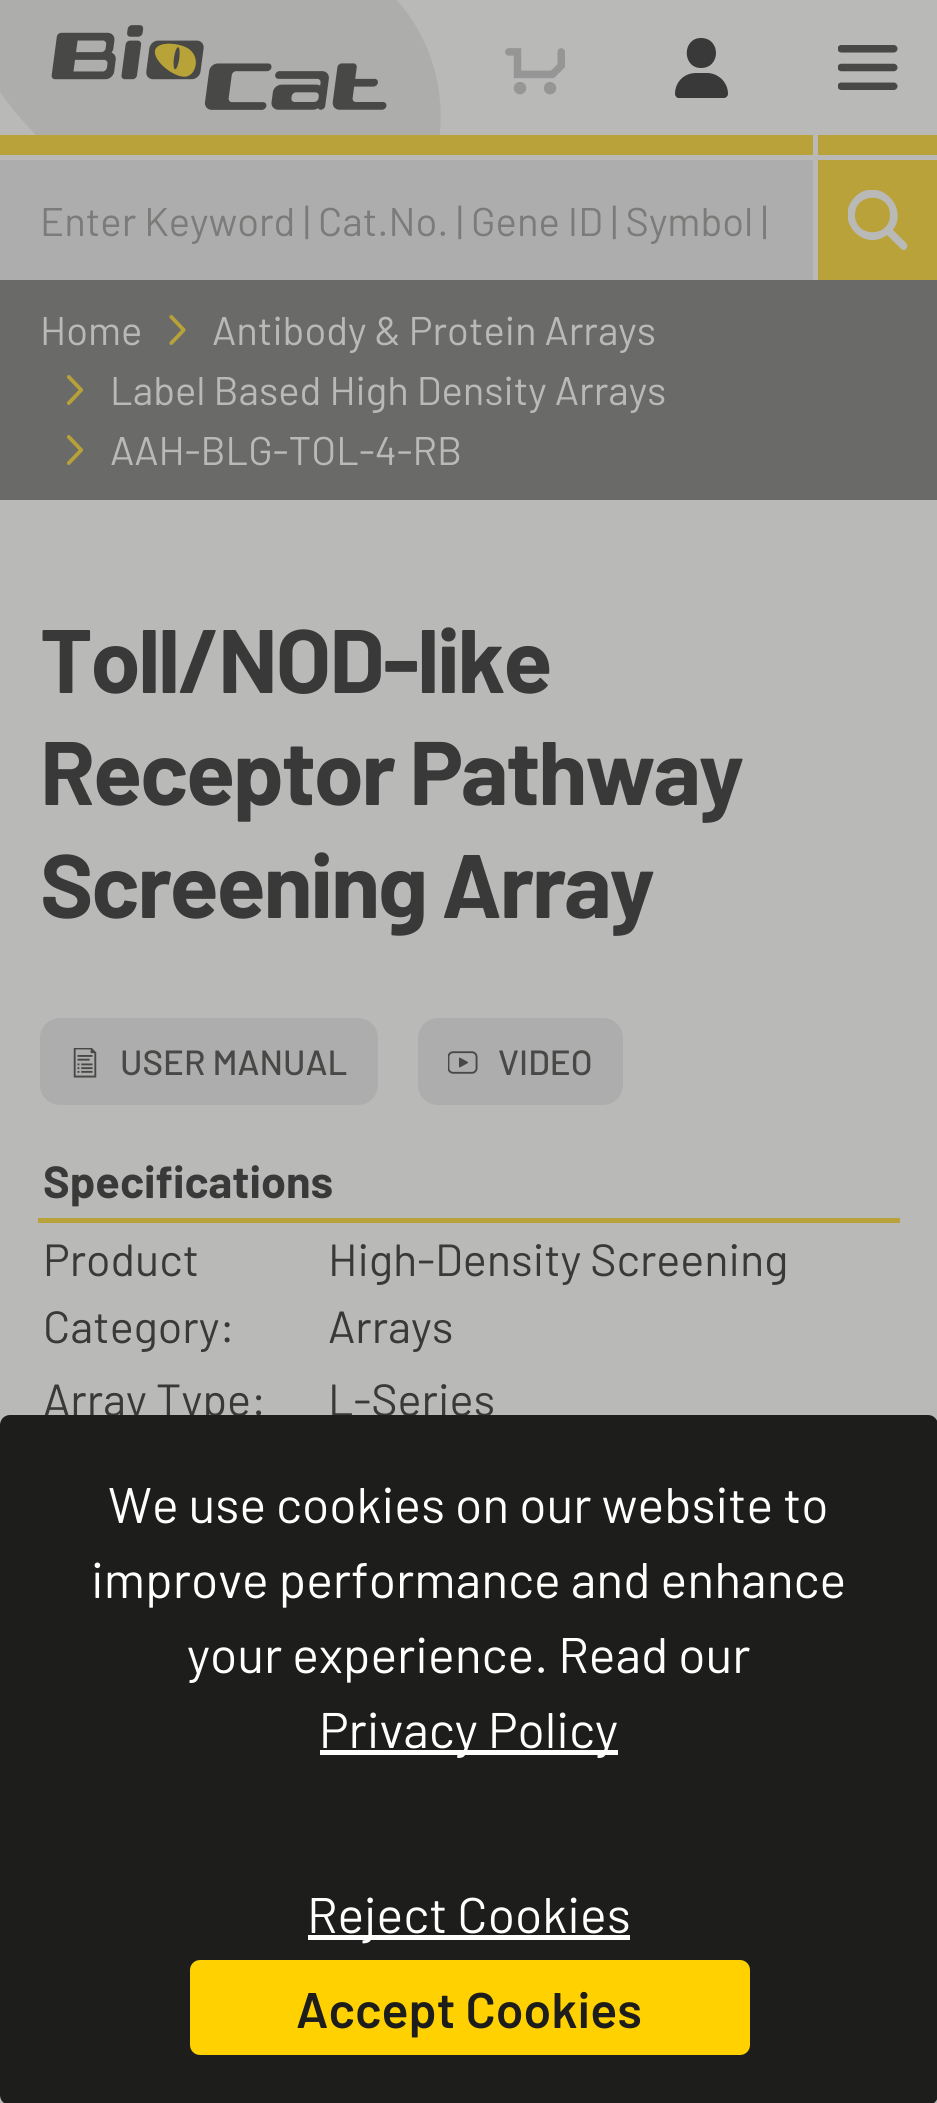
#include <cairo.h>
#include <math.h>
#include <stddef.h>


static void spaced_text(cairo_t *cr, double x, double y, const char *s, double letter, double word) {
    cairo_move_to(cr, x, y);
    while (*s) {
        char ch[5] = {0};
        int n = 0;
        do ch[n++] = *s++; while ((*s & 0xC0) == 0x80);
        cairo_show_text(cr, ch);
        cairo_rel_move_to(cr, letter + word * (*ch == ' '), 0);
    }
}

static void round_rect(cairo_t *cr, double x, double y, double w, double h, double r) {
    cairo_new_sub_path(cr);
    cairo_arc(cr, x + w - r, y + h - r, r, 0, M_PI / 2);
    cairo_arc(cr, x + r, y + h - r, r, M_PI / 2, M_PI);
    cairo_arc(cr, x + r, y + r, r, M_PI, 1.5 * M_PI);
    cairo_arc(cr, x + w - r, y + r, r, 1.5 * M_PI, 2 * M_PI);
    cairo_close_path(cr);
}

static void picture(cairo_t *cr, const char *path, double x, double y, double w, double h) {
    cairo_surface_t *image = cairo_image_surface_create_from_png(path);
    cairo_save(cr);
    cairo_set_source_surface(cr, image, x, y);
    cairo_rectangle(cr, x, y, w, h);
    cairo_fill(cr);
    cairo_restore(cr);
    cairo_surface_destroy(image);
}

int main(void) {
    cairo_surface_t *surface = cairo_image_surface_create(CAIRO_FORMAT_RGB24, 937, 2103);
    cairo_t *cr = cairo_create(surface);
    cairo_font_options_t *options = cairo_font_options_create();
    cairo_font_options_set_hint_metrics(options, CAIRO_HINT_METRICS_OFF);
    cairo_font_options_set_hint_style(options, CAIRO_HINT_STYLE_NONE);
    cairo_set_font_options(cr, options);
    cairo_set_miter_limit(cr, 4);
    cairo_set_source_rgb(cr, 0.725, 0.725, 0.722);
    cairo_paint(cr);
    picture(cr, "img1.png", 0, 0, 441, 135);
    picture(cr, "img2.png", 505, 48, 60, 47);
    cairo_set_source_rgb(cr, 0.224, 0.224, 0.224);
    cairo_new_path(cr);
    cairo_move_to(cr, 701, 68);
    cairo_curve_to(cr, 721, 68, 721, 38, 701, 38);
    cairo_curve_to(cr, 682, 38, 682, 68, 701, 68);
    cairo_close_path(cr);
    cairo_move_to(cr, 696, 73);
    cairo_curve_to(cr, 684, 73, 675, 82, 675, 94);
    cairo_curve_to(cr, 675, 96, 677, 98, 678, 98);
    cairo_line_to(cr, 724, 98);
    cairo_curve_to(cr, 726, 98, 728, 96, 728, 94);
    cairo_curve_to(cr, 728, 82, 718, 73, 707, 73);
    cairo_close_path(cr);
    cairo_fill(cr);
    picture(cr, "img3.png", 838, 45, 60, 45);
    cairo_set_source_rgb(cr, 0.725, 0.635, 0.224);
    cairo_rectangle(cr, 0, 135, 813, 20);
    cairo_fill(cr);
    cairo_rectangle(cr, 818, 135, 119, 20);
    cairo_fill(cr);
    cairo_set_source_rgb(cr, 0.678, 0.678, 0.678);
    cairo_rectangle(cr, 0, 160, 813, 120);
    cairo_fill(cr);
    cairo_select_font_face(cr, "Barlow", CAIRO_FONT_SLANT_NORMAL, CAIRO_FONT_WEIGHT_NORMAL);
    cairo_set_font_size(cr, 40);
    cairo_set_source_rgb(cr, 0.482, 0.482, 0.478);
    cairo_move_to(cr, 40, 236);
    cairo_show_text(cr, "Enter Keyword | Cat.No. | Gene ID | Symbol |");
    cairo_set_source_rgb(cr, 0.725, 0.635, 0.224);
    cairo_rectangle(cr, 818, 160, 119, 120);
    cairo_fill(cr);
    cairo_save(cr);
    cairo_rectangle(cr, 848, 190, 60, 60);
    cairo_clip(cr);
    cairo_set_source_rgb(cr, 0.725, 0.725, 0.722);
    cairo_new_path(cr);
    cairo_move_to(cr, 855, 215);
    cairo_curve_to(cr, 855, 238, 890, 238, 890, 215);
    cairo_curve_to(cr, 890, 192, 855, 192, 855, 215);
    cairo_close_path(cr);
    cairo_move_to(cr, 893, 230);
    cairo_line_to(cr, 902, 239);
    cairo_curve_to(cr, 904, 241, 910, 245, 906, 249);
    cairo_curve_to(cr, 903, 253, 899, 246, 896, 244);
    cairo_line_to(cr, 887, 235);
    cairo_curve_to(cr, 863, 253, 833, 219, 855, 197);
    cairo_curve_to(cr, 877, 175, 910, 206, 893, 230);
    cairo_close_path(cr);
    cairo_fill(cr);
    cairo_restore(cr);
    cairo_set_source_rgb(cr, 0.416, 0.416, 0.412);
    cairo_rectangle(cr, 0, 280, 937, 220);
    cairo_fill(cr);
    cairo_set_source_rgb(cr, 0.725, 0.725, 0.722);
    cairo_move_to(cr, 40, 345);
    cairo_show_text(cr, "Home");
    picture(cr, "img4.png", 169, 315, 17, 30);
    cairo_move_to(cr, 212, 345);
    cairo_show_text(cr, "Antibody & Protein Arrays");
    picture(cr, "img5.png", 66, 375, 18, 30);
    cairo_move_to(cr, 110, 405);
    cairo_show_text(cr, "Label Based High Density Arrays");
    picture(cr, "img5.png", 66, 435, 18, 30);
    cairo_move_to(cr, 110, 465);
    cairo_show_text(cr, "AAH-BLG-TOL-4-RB");
    cairo_select_font_face(cr, "Barlow", CAIRO_FONT_SLANT_NORMAL, CAIRO_FONT_WEIGHT_BOLD);
    cairo_set_font_size(cr, 90);
    cairo_set_source_rgb(cr, 0.224, 0.224, 0.224);
    spaced_text(cr, 40, 693, "Toll/NOD-like", -2.25, 0);
    spaced_text(cr, 40, 805, "Receptor Pathway", -2.25, 0);
    spaced_text(cr, 40, 918, "Screening Array", -2.25, 0);
    cairo_set_source_rgb(cr, 0.678, 0.678, 0.678);
    round_rect(cr, 40, 1018, 338, 87, 20);
    cairo_fill(cr);
    picture(cr, "img6.png", 73, 1048, 24, 30);
    cairo_select_font_face(cr, "Barlow Medium", CAIRO_FONT_SLANT_NORMAL, CAIRO_FONT_WEIGHT_NORMAL);
    cairo_set_font_size(cr, 35);
    cairo_set_source_rgb(cr, 0.282, 0.282, 0.275);
    cairo_move_to(cr, 120, 1075);
    cairo_show_text(cr, "USER MANUAL");
    cairo_set_source_rgb(cr, 0.678, 0.678, 0.678);
    round_rect(cr, 418, 1018, 205, 87, 20);
    cairo_fill(cr);
    picture(cr, "img7.png", 448, 1051, 30, 23);
    cairo_set_source_rgb(cr, 0.282, 0.282, 0.275);
    cairo_move_to(cr, 498, 1075);
    cairo_show_text(cr, "VIDEO");
    cairo_set_source_rgb(cr, 0.725, 0.635, 0.224);
    cairo_rectangle(cr, 38, 1218, 862, 5);
    cairo_fill(cr);
    cairo_select_font_face(cr, "Barlow", CAIRO_FONT_SLANT_NORMAL, CAIRO_FONT_WEIGHT_BOLD);
    cairo_set_font_size(cr, 45);
    cairo_set_source_rgb(cr, 0.224, 0.224, 0.224);
    cairo_move_to(cr, 43, 1198);
    cairo_show_text(cr, "Specifications");
    cairo_select_font_face(cr, "Barlow", CAIRO_FONT_SLANT_NORMAL, CAIRO_FONT_WEIGHT_NORMAL);
    cairo_move_to(cr, 43, 1276);
    cairo_show_text(cr, "Product");
    cairo_move_to(cr, 43, 1343);
    cairo_show_text(cr, "Category:");
    cairo_move_to(cr, 328, 1276);
    cairo_show_text(cr, "High-Density Screening");
    cairo_move_to(cr, 328, 1343);
    cairo_show_text(cr, "Arrays");
    cairo_move_to(cr, 43, 1416);
    cairo_show_text(cr, "Array Type:");
    cairo_move_to(cr, 328, 1416);
    cairo_show_text(cr, "L-Series");
    cairo_set_source_rgb(cr, 0.114, 0.114, 0.106);
    round_rect(cr, 0, 1415, 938, 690, 10);
    cairo_fill(cr);
    cairo_set_font_size(cr, 50);
    cairo_set_source_rgb(cr, 1, 1, 1);
    cairo_move_to(cr, 108, 1523);
    cairo_show_text(cr, "We use cookies on our website to");
    cairo_move_to(cr, 91, 1598);
    cairo_show_text(cr, "improve performance and enhance");
    cairo_move_to(cr, 187, 1673);
    cairo_show_text(cr, "your experience. Read our");
    cairo_rectangle(cr, 320, 1750, 298, 5);
    cairo_fill(cr);
    cairo_move_to(cr, 319, 1748);
    cairo_show_text(cr, "Privacy Policy");
    cairo_rectangle(cr, 308, 1935, 322, 5);
    cairo_fill(cr);
    cairo_move_to(cr, 307, 1933);
    cairo_show_text(cr, "Reject Cookies");
    cairo_set_source_rgb(cr, 1, 0.82, 0);
    round_rect(cr, 190, 1960, 560, 95, 10);
    cairo_fill(cr);
    cairo_select_font_face(cr, "Barlow SemiBold", CAIRO_FONT_SLANT_NORMAL, CAIRO_FONT_WEIGHT_NORMAL);
    cairo_set_source_rgb(cr, 0.114, 0.114, 0.106);
    cairo_move_to(cr, 296, 2028);
    cairo_show_text(cr, "Accept Cookies");
    cairo_surface_write_to_png(surface, "page.png");
    cairo_font_options_destroy(options);
    cairo_destroy(cr);
    cairo_surface_destroy(surface);
    return 0;
}
